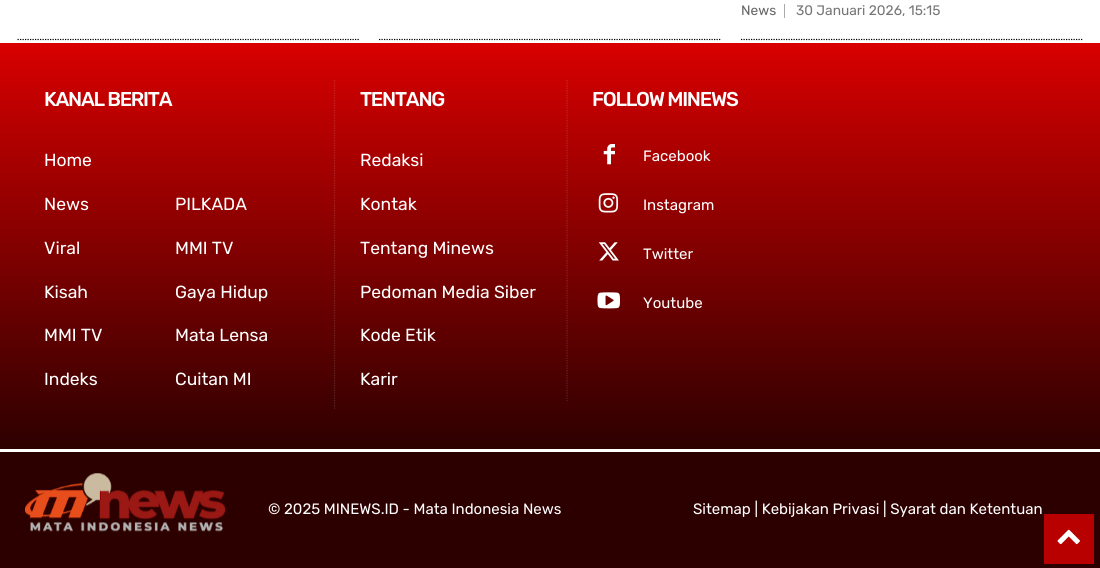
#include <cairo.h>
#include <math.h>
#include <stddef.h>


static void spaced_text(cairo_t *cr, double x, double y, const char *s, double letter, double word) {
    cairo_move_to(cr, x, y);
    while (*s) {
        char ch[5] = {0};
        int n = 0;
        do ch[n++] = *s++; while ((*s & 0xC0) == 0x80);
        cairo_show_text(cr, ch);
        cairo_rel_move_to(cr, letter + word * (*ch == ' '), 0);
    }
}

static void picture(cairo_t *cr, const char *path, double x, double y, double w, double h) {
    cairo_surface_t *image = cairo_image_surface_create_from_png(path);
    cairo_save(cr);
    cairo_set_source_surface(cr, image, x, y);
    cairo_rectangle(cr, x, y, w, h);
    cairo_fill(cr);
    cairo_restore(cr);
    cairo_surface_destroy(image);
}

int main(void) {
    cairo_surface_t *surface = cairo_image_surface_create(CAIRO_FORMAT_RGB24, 1100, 568);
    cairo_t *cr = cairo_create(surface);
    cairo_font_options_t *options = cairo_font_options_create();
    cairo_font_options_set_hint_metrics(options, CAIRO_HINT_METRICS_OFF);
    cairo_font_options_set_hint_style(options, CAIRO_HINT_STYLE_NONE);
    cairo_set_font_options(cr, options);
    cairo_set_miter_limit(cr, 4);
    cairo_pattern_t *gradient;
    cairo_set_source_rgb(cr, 1, 1, 1);
    cairo_paint(cr);
    cairo_set_source_rgb(cr, 0.667, 0.667, 0.667);
    cairo_rectangle(cr, 784, 4, 1, 14);
    cairo_fill(cr);
    cairo_select_font_face(cr, "Rubik", CAIRO_FONT_SLANT_NORMAL, CAIRO_FONT_WEIGHT_NORMAL);
    cairo_set_font_size(cr, 13.75);
    cairo_set_source_rgb(cr, 0.4, 0.4, 0.4);
    cairo_move_to(cr, 741, 15);
    cairo_show_text(cr, "News");
    cairo_set_source_rgb(cr, 0.463, 0.463, 0.463);
    cairo_move_to(cr, 796, 15);
    cairo_show_text(cr, "30 Januari 2026, 15:15");
    cairo_new_path(cr);
    cairo_move_to(cr, 741, 39.5);
    cairo_line_to(cr, 1082.5, 39.5);
    cairo_set_source_rgb(cr, 0, 0, 0);
    cairo_set_line_width(cr, 1.2);
    cairo_set_dash(cr, (double[]){1.25, 1.25}, 2, 0);
    cairo_stroke(cr);
    cairo_new_path(cr);
    cairo_move_to(cr, 17.5, 39.5);
    cairo_line_to(cr, 359, 39.5);
    cairo_stroke(cr);
    cairo_new_path(cr);
    cairo_move_to(cr, 379, 39.5);
    cairo_line_to(cr, 721, 39.5);
    cairo_stroke(cr);
    gradient = cairo_pattern_create_linear(550, 42, 550, 449);
    cairo_pattern_add_color_stop_rgba(gradient, 0, 0.851, 0, 0, 1);
    cairo_pattern_add_color_stop_rgba(gradient, 1, 0.176, 0, 0, 1);
    cairo_set_source(cr, gradient);
    cairo_pattern_destroy(gradient);
    cairo_rectangle(cr, 0, 43, 1100, 406);
    cairo_fill(cr);
    cairo_new_path(cr);
    cairo_move_to(cr, 334.5, 80);
    cairo_line_to(cr, 334.5, 409);
    cairo_set_source_rgba(cr, 1, 1, 1, 0.15);
    cairo_stroke(cr);
    cairo_select_font_face(cr, "Rubik Medium", CAIRO_FONT_SLANT_NORMAL, CAIRO_FONT_WEIGHT_NORMAL);
    cairo_set_font_size(cr, 20);
    cairo_set_source_rgb(cr, 1, 1, 1);
    spaced_text(cr, 44, 106, "KANAL BERITA", -1.25, 0);
    cairo_select_font_face(cr, "Rubik", CAIRO_FONT_SLANT_NORMAL, CAIRO_FONT_WEIGHT_NORMAL);
    cairo_set_font_size(cr, 17.5);
    cairo_move_to(cr, 44, 166);
    cairo_show_text(cr, "Home");
    cairo_move_to(cr, 44, 210);
    cairo_show_text(cr, "News");
    cairo_move_to(cr, 44, 254);
    cairo_show_text(cr, "Viral");
    cairo_move_to(cr, 44, 298);
    cairo_show_text(cr, "Kisah");
    cairo_move_to(cr, 44, 341);
    cairo_show_text(cr, "MMI TV");
    cairo_move_to(cr, 44, 385);
    cairo_show_text(cr, "Indeks");
    cairo_move_to(cr, 175, 210);
    cairo_show_text(cr, "PILKADA");
    cairo_move_to(cr, 175, 254);
    cairo_show_text(cr, "MMI TV");
    cairo_move_to(cr, 175, 298);
    cairo_show_text(cr, "Gaya Hidup");
    cairo_move_to(cr, 175, 341);
    cairo_show_text(cr, "Mata Lensa");
    cairo_move_to(cr, 175, 385);
    cairo_show_text(cr, "Cuitan MI");
    cairo_new_path(cr);
    cairo_move_to(cr, 567, 80);
    cairo_line_to(cr, 567, 401);
    cairo_set_source_rgba(cr, 1, 1, 1, 0.15);
    cairo_stroke(cr);
    cairo_select_font_face(cr, "Rubik Medium", CAIRO_FONT_SLANT_NORMAL, CAIRO_FONT_WEIGHT_NORMAL);
    cairo_set_font_size(cr, 20);
    cairo_set_source_rgb(cr, 1, 1, 1);
    spaced_text(cr, 360, 106, "TENTANG", -1.25, 0);
    cairo_select_font_face(cr, "Rubik", CAIRO_FONT_SLANT_NORMAL, CAIRO_FONT_WEIGHT_NORMAL);
    cairo_set_font_size(cr, 17.5);
    cairo_move_to(cr, 360, 166);
    cairo_show_text(cr, "Redaksi");
    cairo_move_to(cr, 360, 210);
    cairo_show_text(cr, "Kontak");
    cairo_move_to(cr, 360, 254);
    cairo_show_text(cr, "Tentang Minews");
    cairo_move_to(cr, 360, 298);
    cairo_show_text(cr, "Pedoman Media Siber");
    cairo_move_to(cr, 360, 341);
    cairo_show_text(cr, "Kode Etik");
    cairo_move_to(cr, 360, 385);
    cairo_show_text(cr, "Karir");
    cairo_select_font_face(cr, "Rubik Medium", CAIRO_FONT_SLANT_NORMAL, CAIRO_FONT_WEIGHT_NORMAL);
    cairo_set_font_size(cr, 20);
    spaced_text(cr, 592, 106, "FOLLOW MINEWS", -1.25, 0);
    picture(cr, "img1.png", 603, 144, 12, 21);
    cairo_select_font_face(cr, "Rubik", CAIRO_FONT_SLANT_NORMAL, CAIRO_FONT_WEIGHT_NORMAL);
    cairo_set_font_size(cr, 15);
    cairo_move_to(cr, 643, 161);
    cairo_show_text(cr, "Facebook");
    picture(cr, "img2.png", 598, 193, 21, 20);
    cairo_move_to(cr, 643, 210);
    cairo_show_text(cr, "Instagram");
    picture(cr, "img3.png", 598, 242, 21, 19);
    cairo_move_to(cr, 643, 259);
    cairo_show_text(cr, "Twitter");
    picture(cr, "img4.png", 597, 292, 23, 17);
    cairo_move_to(cr, 643, 308);
    cairo_show_text(cr, "Youtube");
    cairo_set_source_rgb(cr, 0.176, 0, 0);
    cairo_rectangle(cr, 0, 452, 1100, 116);
    cairo_fill(cr);
    picture(cr, "img5.png", 25, 473, 200, 59);
    cairo_set_source_rgb(cr, 1, 1, 1);
    cairo_move_to(cr, 268, 514);
    cairo_show_text(cr, "© 2025 MINEWS.ID - Mata Indonesia News");
    cairo_move_to(cr, 693, 514);
    cairo_show_text(cr, "Sitemap | Kebijakan Privasi | Syarat dan Ketentuan");
    cairo_set_source_rgb(cr, 0.725, 0, 0);
    cairo_rectangle(cr, 1044, 514, 50, 50);
    cairo_fill(cr);
    picture(cr, "img6.png", 1057, 529, 23, 16);
    cairo_surface_write_to_png(surface, "page.png");
    cairo_font_options_destroy(options);
    cairo_destroy(cr);
    cairo_surface_destroy(surface);
    return 0;
}
